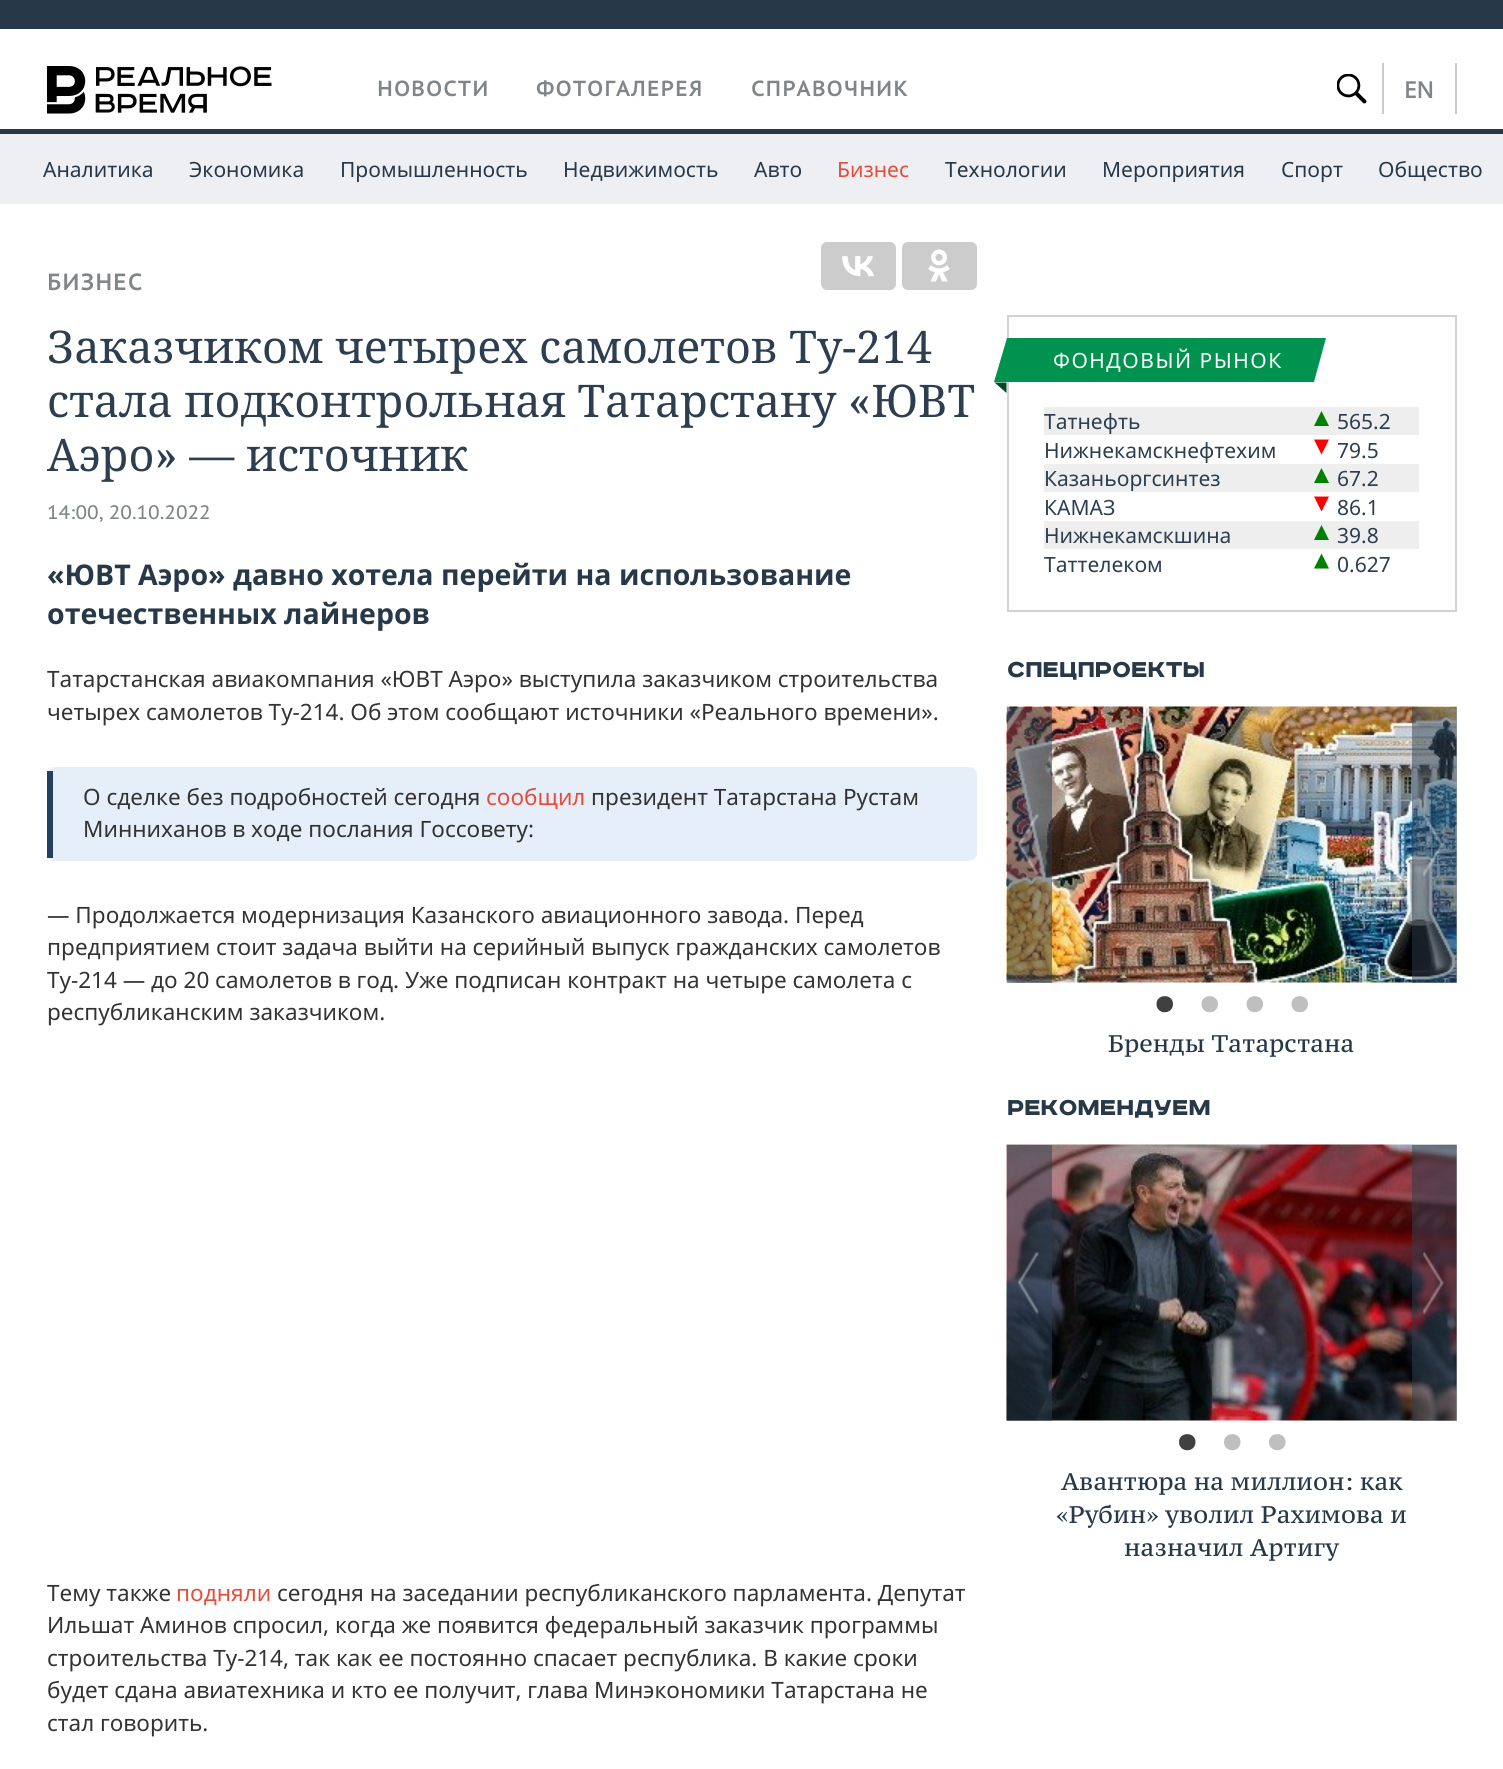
#include <cairo.h>
#include <math.h>
#include <stddef.h>


static void spaced_text(cairo_t *cr, double x, double y, const char *s, double letter, double word) {
    cairo_move_to(cr, x, y);
    while (*s) {
        char ch[5] = {0};
        int n = 0;
        do ch[n++] = *s++; while ((*s & 0xC0) == 0x80);
        cairo_show_text(cr, ch);
        cairo_rel_move_to(cr, letter + word * (*ch == ' '), 0);
    }
}

static void round_rect(cairo_t *cr, double x, double y, double w, double h, double r) {
    cairo_new_sub_path(cr);
    cairo_arc(cr, x + w - r, y + h - r, r, 0, M_PI / 2);
    cairo_arc(cr, x + r, y + h - r, r, M_PI / 2, M_PI);
    cairo_arc(cr, x + r, y + r, r, M_PI, 1.5 * M_PI);
    cairo_arc(cr, x + w - r, y + r, r, 1.5 * M_PI, 2 * M_PI);
    cairo_close_path(cr);
}

static void picture(cairo_t *cr, const char *path, double x, double y, double w, double h) {
    cairo_surface_t *image = cairo_image_surface_create_from_png(path);
    cairo_save(cr);
    cairo_set_source_surface(cr, image, x, y);
    cairo_rectangle(cr, x, y, w, h);
    cairo_fill(cr);
    cairo_restore(cr);
    cairo_surface_destroy(image);
}

int main(void) {
    cairo_surface_t *surface = cairo_image_surface_create(CAIRO_FORMAT_RGB24, 1503, 1769);
    cairo_t *cr = cairo_create(surface);
    cairo_font_options_t *options = cairo_font_options_create();
    cairo_font_options_set_hint_metrics(options, CAIRO_HINT_METRICS_OFF);
    cairo_font_options_set_hint_style(options, CAIRO_HINT_STYLE_NONE);
    cairo_set_font_options(cr, options);
    cairo_set_miter_limit(cr, 4);
    cairo_set_source_rgb(cr, 1, 1, 1);
    cairo_paint(cr);
    cairo_set_source_rgb(cr, 0.153, 0.22, 0.286);
    cairo_rectangle(cr, 0, 0, 1503, 29);
    cairo_fill(cr);
    picture(cr, "img1.png", 47, 66, 225, 48);
    cairo_select_font_face(cr, "PT Sans Caption", CAIRO_FONT_SLANT_NORMAL, CAIRO_FONT_WEIGHT_BOLD);
    cairo_set_font_size(cr, 21);
    cairo_set_source_rgb(cr, 0.502, 0.522, 0.537);
    spaced_text(cr, 377, 96, "НОВОСТИ", 1.5, 0);
    spaced_text(cr, 536, 96, "ФОТОГАЛЕРЕЯ", 1.5, 0);
    spaced_text(cr, 751, 96, "СПРАВОЧНИК", 1.5, 0);
    picture(cr, "img2.png", 1337, 74, 30, 30);
    cairo_set_source_rgb(cr, 0.8, 0.8, 0.8);
    cairo_rectangle(cr, 1455, 63, 2, 51);
    cairo_fill(cr);
    cairo_rectangle(cr, 1382, 63, 2, 51);
    cairo_fill(cr);
    cairo_select_font_face(cr, "Noto Sans", CAIRO_FONT_SLANT_NORMAL, CAIRO_FONT_WEIGHT_BOLD);
    cairo_set_font_size(cr, 22.5);
    cairo_set_source_rgb(cr, 0.502, 0.522, 0.537);
    cairo_move_to(cr, 1404, 98);
    cairo_show_text(cr, "EN");
    cairo_set_source_rgb(cr, 0.153, 0.22, 0.286);
    cairo_rectangle(cr, 0, 129, 1503, 5);
    cairo_fill(cr);
    cairo_set_source_rgb(cr, 0.929, 0.937, 0.949);
    cairo_rectangle(cr, 0, 134, 1503, 70);
    cairo_fill(cr);
    cairo_select_font_face(cr, "Noto Sans", CAIRO_FONT_SLANT_NORMAL, CAIRO_FONT_WEIGHT_NORMAL);
    cairo_set_font_size(cr, 21);
    cairo_set_source_rgb(cr, 0.153, 0.22, 0.286);
    cairo_move_to(cr, 43, 177);
    cairo_show_text(cr, "Аналитика");
    cairo_move_to(cr, 189, 177);
    cairo_show_text(cr, "Экономика");
    cairo_move_to(cr, 340, 177);
    cairo_show_text(cr, "Промышленность");
    cairo_move_to(cr, 563, 177);
    cairo_show_text(cr, "Недвижимость");
    cairo_move_to(cr, 754, 177);
    cairo_show_text(cr, "Авто");
    cairo_set_source_rgb(cr, 0.902, 0.298, 0.231);
    cairo_move_to(cr, 837, 177);
    cairo_show_text(cr, "Бизнес");
    cairo_set_source_rgb(cr, 0.153, 0.22, 0.286);
    cairo_move_to(cr, 945, 177);
    cairo_show_text(cr, "Технологии");
    cairo_move_to(cr, 1102, 177);
    cairo_show_text(cr, "Мероприятия");
    cairo_move_to(cr, 1281, 177);
    cairo_show_text(cr, "Спорт");
    cairo_move_to(cr, 1378, 177);
    cairo_show_text(cr, "Общество");
    cairo_set_source_rgb(cr, 0.8, 0.8, 0.8);
    round_rect(cr, 821, 242, 75, 48, 6);
    cairo_fill(cr);
    picture(cr, "img3.png", 842, 256, 32, 21);
    round_rect(cr, 902, 242, 75, 48, 6);
    cairo_fill(cr);
    picture(cr, "img4.png", 928, 249, 22, 33);
    cairo_select_font_face(cr, "PT Sans Caption", CAIRO_FONT_SLANT_NORMAL, CAIRO_FONT_WEIGHT_BOLD);
    cairo_set_font_size(cr, 22.5);
    cairo_set_source_rgb(cr, 0.502, 0.522, 0.537);
    spaced_text(cr, 47, 290, "БИЗНЕС", 1.5, 0);
    cairo_select_font_face(cr, "Noto Serif", CAIRO_FONT_SLANT_NORMAL, CAIRO_FONT_WEIGHT_NORMAL);
    cairo_set_font_size(cr, 45);
    cairo_set_source_rgb(cr, 0.173, 0.243, 0.314);
    cairo_move_to(cr, 47, 363);
    cairo_show_text(cr, "Заказчиком четырех самолетов Ту-214");
    cairo_move_to(cr, 47, 417);
    cairo_show_text(cr, "стала подконтрольная Татарстану «ЮВТ");
    cairo_move_to(cr, 47, 471);
    cairo_show_text(cr, "Аэро» — источник");
    cairo_select_font_face(cr, "PT Sans Caption", CAIRO_FONT_SLANT_NORMAL, CAIRO_FONT_WEIGHT_NORMAL);
    cairo_set_font_size(cr, 19.5);
    cairo_set_source_rgb(cr, 0.502, 0.522, 0.537);
    cairo_move_to(cr, 47, 519);
    cairo_show_text(cr, "14:00, 20.10.2022");
    cairo_select_font_face(cr, "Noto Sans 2", CAIRO_FONT_SLANT_NORMAL, CAIRO_FONT_WEIGHT_BOLD);
    cairo_set_font_size(cr, 28.5);
    cairo_set_source_rgb(cr, 0.153, 0.22, 0.286);
    cairo_move_to(cr, 47, 585);
    cairo_show_text(cr, "«ЮВТ Аэро» давно хотела перейти на использование");
    cairo_move_to(cr, 47, 624);
    cairo_show_text(cr, "отечественных лайнеров");
    cairo_select_font_face(cr, "Noto Sans", CAIRO_FONT_SLANT_NORMAL, CAIRO_FONT_WEIGHT_NORMAL);
    cairo_set_font_size(cr, 22.5);
    cairo_set_source_rgb(cr, 0.2, 0.2, 0.2);
    cairo_move_to(cr, 47, 687);
    cairo_show_text(cr, "Татарстанская авиакомпания «ЮВТ Аэро» выступила заказчиком строительства");
    cairo_move_to(cr, 47, 720);
    cairo_show_text(cr, "четырех самолетов Ту-214. Об этом сообщают источники «Реального времени».");
    cairo_set_source_rgb(cr, 0.898, 0.933, 0.973);
    round_rect(cr, 47, 767, 930, 94, 8);
    cairo_fill(cr);
    cairo_set_source_rgb(cr, 0.141, 0.251, 0.38);
    cairo_rectangle(cr, 47, 771, 6, 87);
    cairo_fill(cr);
    cairo_set_source_rgb(cr, 0.2, 0.2, 0.2);
    cairo_move_to(cr, 83, 805);
    cairo_show_text(cr, "О сделке без подробностей сегодня");
    cairo_set_source_rgb(cr, 0.902, 0.298, 0.231);
    cairo_move_to(cr, 486, 805);
    cairo_show_text(cr, "сообщил");
    cairo_set_source_rgb(cr, 0.2, 0.2, 0.2);
    cairo_move_to(cr, 591, 805);
    cairo_show_text(cr, "президент Татарстана Рустам");
    cairo_move_to(cr, 83, 837);
    cairo_show_text(cr, "Минниханов в ходе послания Госсовету:");
    cairo_move_to(cr, 47, 923);
    cairo_show_text(cr, "— Продолжается модернизация Казанского авиационного завода. Перед");
    cairo_move_to(cr, 47, 955);
    cairo_show_text(cr, "предприятием стоит задача выйти на серийный выпуск гражданских самолетов");
    cairo_move_to(cr, 47, 988);
    cairo_show_text(cr, "Ту-214 — до 20 самолетов в год. Уже подписан контракт на четыре самолета с");
    cairo_move_to(cr, 47, 1020);
    cairo_show_text(cr, "республиканским заказчиком.");
    cairo_move_to(cr, 47, 1601);
    cairo_show_text(cr, "Тему также");
    cairo_set_source_rgb(cr, 0.902, 0.298, 0.231);
    cairo_move_to(cr, 176, 1601);
    cairo_show_text(cr, "подняли");
    cairo_set_source_rgb(cr, 0.2, 0.2, 0.2);
    cairo_move_to(cr, 277, 1601);
    cairo_show_text(cr, "сегодня на заседании республиканского парламента. Депутат");
    cairo_move_to(cr, 47, 1633);
    cairo_show_text(cr, "Ильшат Аминов спросил, когда же появится федеральный заказчик программы");
    cairo_move_to(cr, 47, 1666);
    cairo_show_text(cr, "строительства Ту-214, так как ее постоянно спасает республика. В какие сроки");
    cairo_move_to(cr, 47, 1698);
    cairo_show_text(cr, "будет сдана авиатехника и кто ее получит, глава Минэкономики Татарстана не");
    cairo_move_to(cr, 47, 1731);
    cairo_show_text(cr, "стал говорить.");
    cairo_rectangle(cr, 1008, 316, 448, 295);
    cairo_set_source_rgb(cr, 0.82, 0.824, 0.827);
    cairo_stroke(cr);
    cairo_set_source_rgb(cr, 0, 0.576, 0.31);
    cairo_new_path(cr);
    cairo_move_to(cr, 1007, 338);
    cairo_line_to(cr, 1326, 338);
    cairo_line_to(cr, 1314, 382);
    cairo_line_to(cr, 994, 382);
    cairo_close_path(cr);
    cairo_fill(cr);
    cairo_set_font_size(cr, 21);
    cairo_set_source_rgb(cr, 1, 1, 1);
    spaced_text(cr, 1053, 368, "ФОНДОВЫЙ РЫНОК", 1.5, 0);
    cairo_set_source_rgb(cr, 0, 0.282, 0.153);
    cairo_new_path(cr);
    cairo_move_to(cr, 1006.5, 382.5);
    cairo_line_to(cr, 1006.5, 393);
    cairo_line_to(cr, 994.5, 382.5);
    cairo_close_path(cr);
    cairo_fill(cr);
    cairo_set_source_rgb(cr, 0.933, 0.933, 0.933);
    cairo_rectangle(cr, 1044, 407, 375, 28);
    cairo_fill(cr);
    cairo_set_source_rgb(cr, 0.173, 0.243, 0.314);
    cairo_move_to(cr, 1044, 429);
    cairo_show_text(cr, "Татнефть");
    cairo_set_source_rgb(cr, 0, 0.502, 0);
    cairo_new_path(cr);
    cairo_move_to(cr, 1329, 426);
    cairo_line_to(cr, 1314, 426);
    cairo_line_to(cr, 1321.5, 411);
    cairo_close_path(cr);
    cairo_fill(cr);
    cairo_set_source_rgb(cr, 0.173, 0.243, 0.314);
    cairo_move_to(cr, 1337, 429);
    cairo_show_text(cr, "565.2");
    cairo_move_to(cr, 1044, 458);
    cairo_show_text(cr, "Нижнекамскнефтехим");
    cairo_set_source_rgb(cr, 1, 0, 0);
    cairo_new_path(cr);
    cairo_move_to(cr, 1314, 439.5);
    cairo_line_to(cr, 1329, 439.5);
    cairo_line_to(cr, 1321.5, 454.5);
    cairo_close_path(cr);
    cairo_fill(cr);
    cairo_set_source_rgb(cr, 0.173, 0.243, 0.314);
    cairo_move_to(cr, 1337, 458);
    cairo_show_text(cr, "79.5");
    cairo_set_source_rgb(cr, 0.933, 0.933, 0.933);
    cairo_rectangle(cr, 1044, 464, 375, 28);
    cairo_fill(cr);
    cairo_set_source_rgb(cr, 0.173, 0.243, 0.314);
    cairo_move_to(cr, 1044, 486);
    cairo_show_text(cr, "Казаньоргсинтез");
    cairo_set_source_rgb(cr, 0, 0.502, 0);
    cairo_new_path(cr);
    cairo_move_to(cr, 1329, 483);
    cairo_line_to(cr, 1314, 483);
    cairo_line_to(cr, 1321.5, 468);
    cairo_close_path(cr);
    cairo_fill(cr);
    cairo_set_source_rgb(cr, 0.173, 0.243, 0.314);
    cairo_move_to(cr, 1337, 486);
    cairo_show_text(cr, "67.2");
    cairo_move_to(cr, 1044, 515);
    cairo_show_text(cr, "КАМАЗ");
    cairo_set_source_rgb(cr, 1, 0, 0);
    cairo_new_path(cr);
    cairo_move_to(cr, 1314, 496.5);
    cairo_line_to(cr, 1329, 496.5);
    cairo_line_to(cr, 1321.5, 511.5);
    cairo_close_path(cr);
    cairo_fill(cr);
    cairo_set_source_rgb(cr, 0.173, 0.243, 0.314);
    cairo_move_to(cr, 1337, 515);
    cairo_show_text(cr, "86.1");
    cairo_set_source_rgb(cr, 0.933, 0.933, 0.933);
    cairo_rectangle(cr, 1044, 521, 375, 28);
    cairo_fill(cr);
    cairo_set_source_rgb(cr, 0.173, 0.243, 0.314);
    cairo_move_to(cr, 1044, 543);
    cairo_show_text(cr, "Нижнекамскшина");
    cairo_set_source_rgb(cr, 0, 0.502, 0);
    cairo_new_path(cr);
    cairo_move_to(cr, 1329, 540);
    cairo_line_to(cr, 1314, 540);
    cairo_line_to(cr, 1321.5, 525);
    cairo_close_path(cr);
    cairo_fill(cr);
    cairo_set_source_rgb(cr, 0.173, 0.243, 0.314);
    cairo_move_to(cr, 1337, 543);
    cairo_show_text(cr, "39.8");
    cairo_move_to(cr, 1044, 572);
    cairo_show_text(cr, "Таттелеком");
    cairo_set_source_rgb(cr, 0, 0.502, 0);
    cairo_new_path(cr);
    cairo_move_to(cr, 1329, 568.5);
    cairo_line_to(cr, 1314, 568.5);
    cairo_line_to(cr, 1321.5, 553.5);
    cairo_close_path(cr);
    cairo_fill(cr);
    cairo_set_source_rgb(cr, 0.173, 0.243, 0.314);
    cairo_move_to(cr, 1337, 572);
    cairo_show_text(cr, "0.627");
    cairo_select_font_face(cr, "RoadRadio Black", CAIRO_FONT_SLANT_NORMAL, CAIRO_FONT_WEIGHT_NORMAL);
    cairo_set_font_size(cr, 27);
    cairo_set_source_rgb(cr, 0.153, 0.22, 0.286);
    cairo_move_to(cr, 1007, 677);
    cairo_show_text(cr, "СПЕЦПРОЕКТЫ");
    picture(cr, "img5.png", 1006, 706, 451, 277);
    cairo_set_source_rgba(cr, 0.173, 0.247, 0.314, 0.5);
    cairo_rectangle(cr, 1007, 707, 45, 276);
    cairo_fill(cr);
    picture(cr, "img6.png", 1018, 814, 21, 63);
    cairo_rectangle(cr, 1412, 707, 45, 276);
    cairo_fill(cr);
    picture(cr, "img7.png", 1423, 814, 21, 63);
    cairo_set_source_rgb(cr, 0.251, 0.251, 0.251);
    cairo_new_path(cr);
    cairo_move_to(cr, 1173, 1004);
    cairo_curve_to(cr, 1173, 993.5, 1156.5, 993.5, 1156.5, 1004);
    cairo_curve_to(cr, 1156.5, 1015, 1173, 1015, 1173, 1004);
    cairo_close_path(cr);
    cairo_fill(cr);
    cairo_set_source_rgb(cr, 0.749, 0.749, 0.749);
    cairo_new_path(cr);
    cairo_move_to(cr, 1218, 1004);
    cairo_curve_to(cr, 1218, 993.5, 1201.5, 993.5, 1201.5, 1004);
    cairo_curve_to(cr, 1201.5, 1015, 1218, 1015, 1218, 1004);
    cairo_close_path(cr);
    cairo_move_to(cr, 1263, 1004);
    cairo_curve_to(cr, 1263, 993.5, 1246.5, 993.5, 1246.5, 1004);
    cairo_curve_to(cr, 1246.5, 1015, 1263, 1015, 1263, 1004);
    cairo_close_path(cr);
    cairo_fill(cr);
    cairo_new_path(cr);
    cairo_move_to(cr, 1308, 1004);
    cairo_curve_to(cr, 1308, 993.5, 1291.5, 993.5, 1291.5, 1004);
    cairo_curve_to(cr, 1291.5, 1015, 1308, 1015, 1308, 1004);
    cairo_close_path(cr);
    cairo_fill(cr);
    cairo_select_font_face(cr, "PT Serif Caption", CAIRO_FONT_SLANT_NORMAL, CAIRO_FONT_WEIGHT_NORMAL);
    cairo_set_font_size(cr, 24);
    cairo_set_source_rgb(cr, 0.153, 0.22, 0.286);
    cairo_move_to(cr, 1108, 1052);
    cairo_show_text(cr, "Бренды Татарстана");
    cairo_select_font_face(cr, "RoadRadio Black", CAIRO_FONT_SLANT_NORMAL, CAIRO_FONT_WEIGHT_NORMAL);
    cairo_set_font_size(cr, 27);
    cairo_move_to(cr, 1007, 1115);
    cairo_show_text(cr, "РЕКОМЕНДУЕМ");
    picture(cr, "img8.png", 1006, 1144, 451, 277);
    cairo_set_source_rgba(cr, 0.173, 0.247, 0.314, 0.5);
    cairo_rectangle(cr, 1007, 1145, 45, 276);
    cairo_fill(cr);
    picture(cr, "img9.png", 1018, 1252, 21, 63);
    cairo_rectangle(cr, 1412, 1145, 45, 276);
    cairo_fill(cr);
    picture(cr, "img10.png", 1423, 1252, 21, 63);
    cairo_set_source_rgb(cr, 0.251, 0.251, 0.251);
    cairo_new_path(cr);
    cairo_move_to(cr, 1195.5, 1442);
    cairo_curve_to(cr, 1195.5, 1431.5, 1179, 1431.5, 1179, 1442);
    cairo_curve_to(cr, 1179, 1453, 1195.5, 1453, 1195.5, 1442);
    cairo_close_path(cr);
    cairo_fill(cr);
    cairo_set_source_rgb(cr, 0.749, 0.749, 0.749);
    cairo_new_path(cr);
    cairo_move_to(cr, 1240.5, 1442);
    cairo_curve_to(cr, 1240.5, 1431.5, 1224, 1431.5, 1224, 1442);
    cairo_curve_to(cr, 1224, 1453, 1240.5, 1453, 1240.5, 1442);
    cairo_close_path(cr);
    cairo_move_to(cr, 1285.5, 1442);
    cairo_curve_to(cr, 1285.5, 1431.5, 1269, 1431.5, 1269, 1442);
    cairo_curve_to(cr, 1269, 1453, 1285.5, 1453, 1285.5, 1442);
    cairo_close_path(cr);
    cairo_fill(cr);
    cairo_select_font_face(cr, "PT Serif Caption", CAIRO_FONT_SLANT_NORMAL, CAIRO_FONT_WEIGHT_NORMAL);
    cairo_set_font_size(cr, 24);
    cairo_set_source_rgb(cr, 0.153, 0.22, 0.286);
    cairo_move_to(cr, 1061, 1490);
    cairo_show_text(cr, "Авантюра на миллион: как");
    cairo_move_to(cr, 1056, 1523);
    cairo_show_text(cr, "«Рубин» уволил Рахимова и");
    cairo_move_to(cr, 1124, 1556);
    cairo_show_text(cr, "назначил Артигу");
    cairo_surface_write_to_png(surface, "page.png");
    cairo_font_options_destroy(options);
    cairo_destroy(cr);
    cairo_surface_destroy(surface);
    return 0;
}
